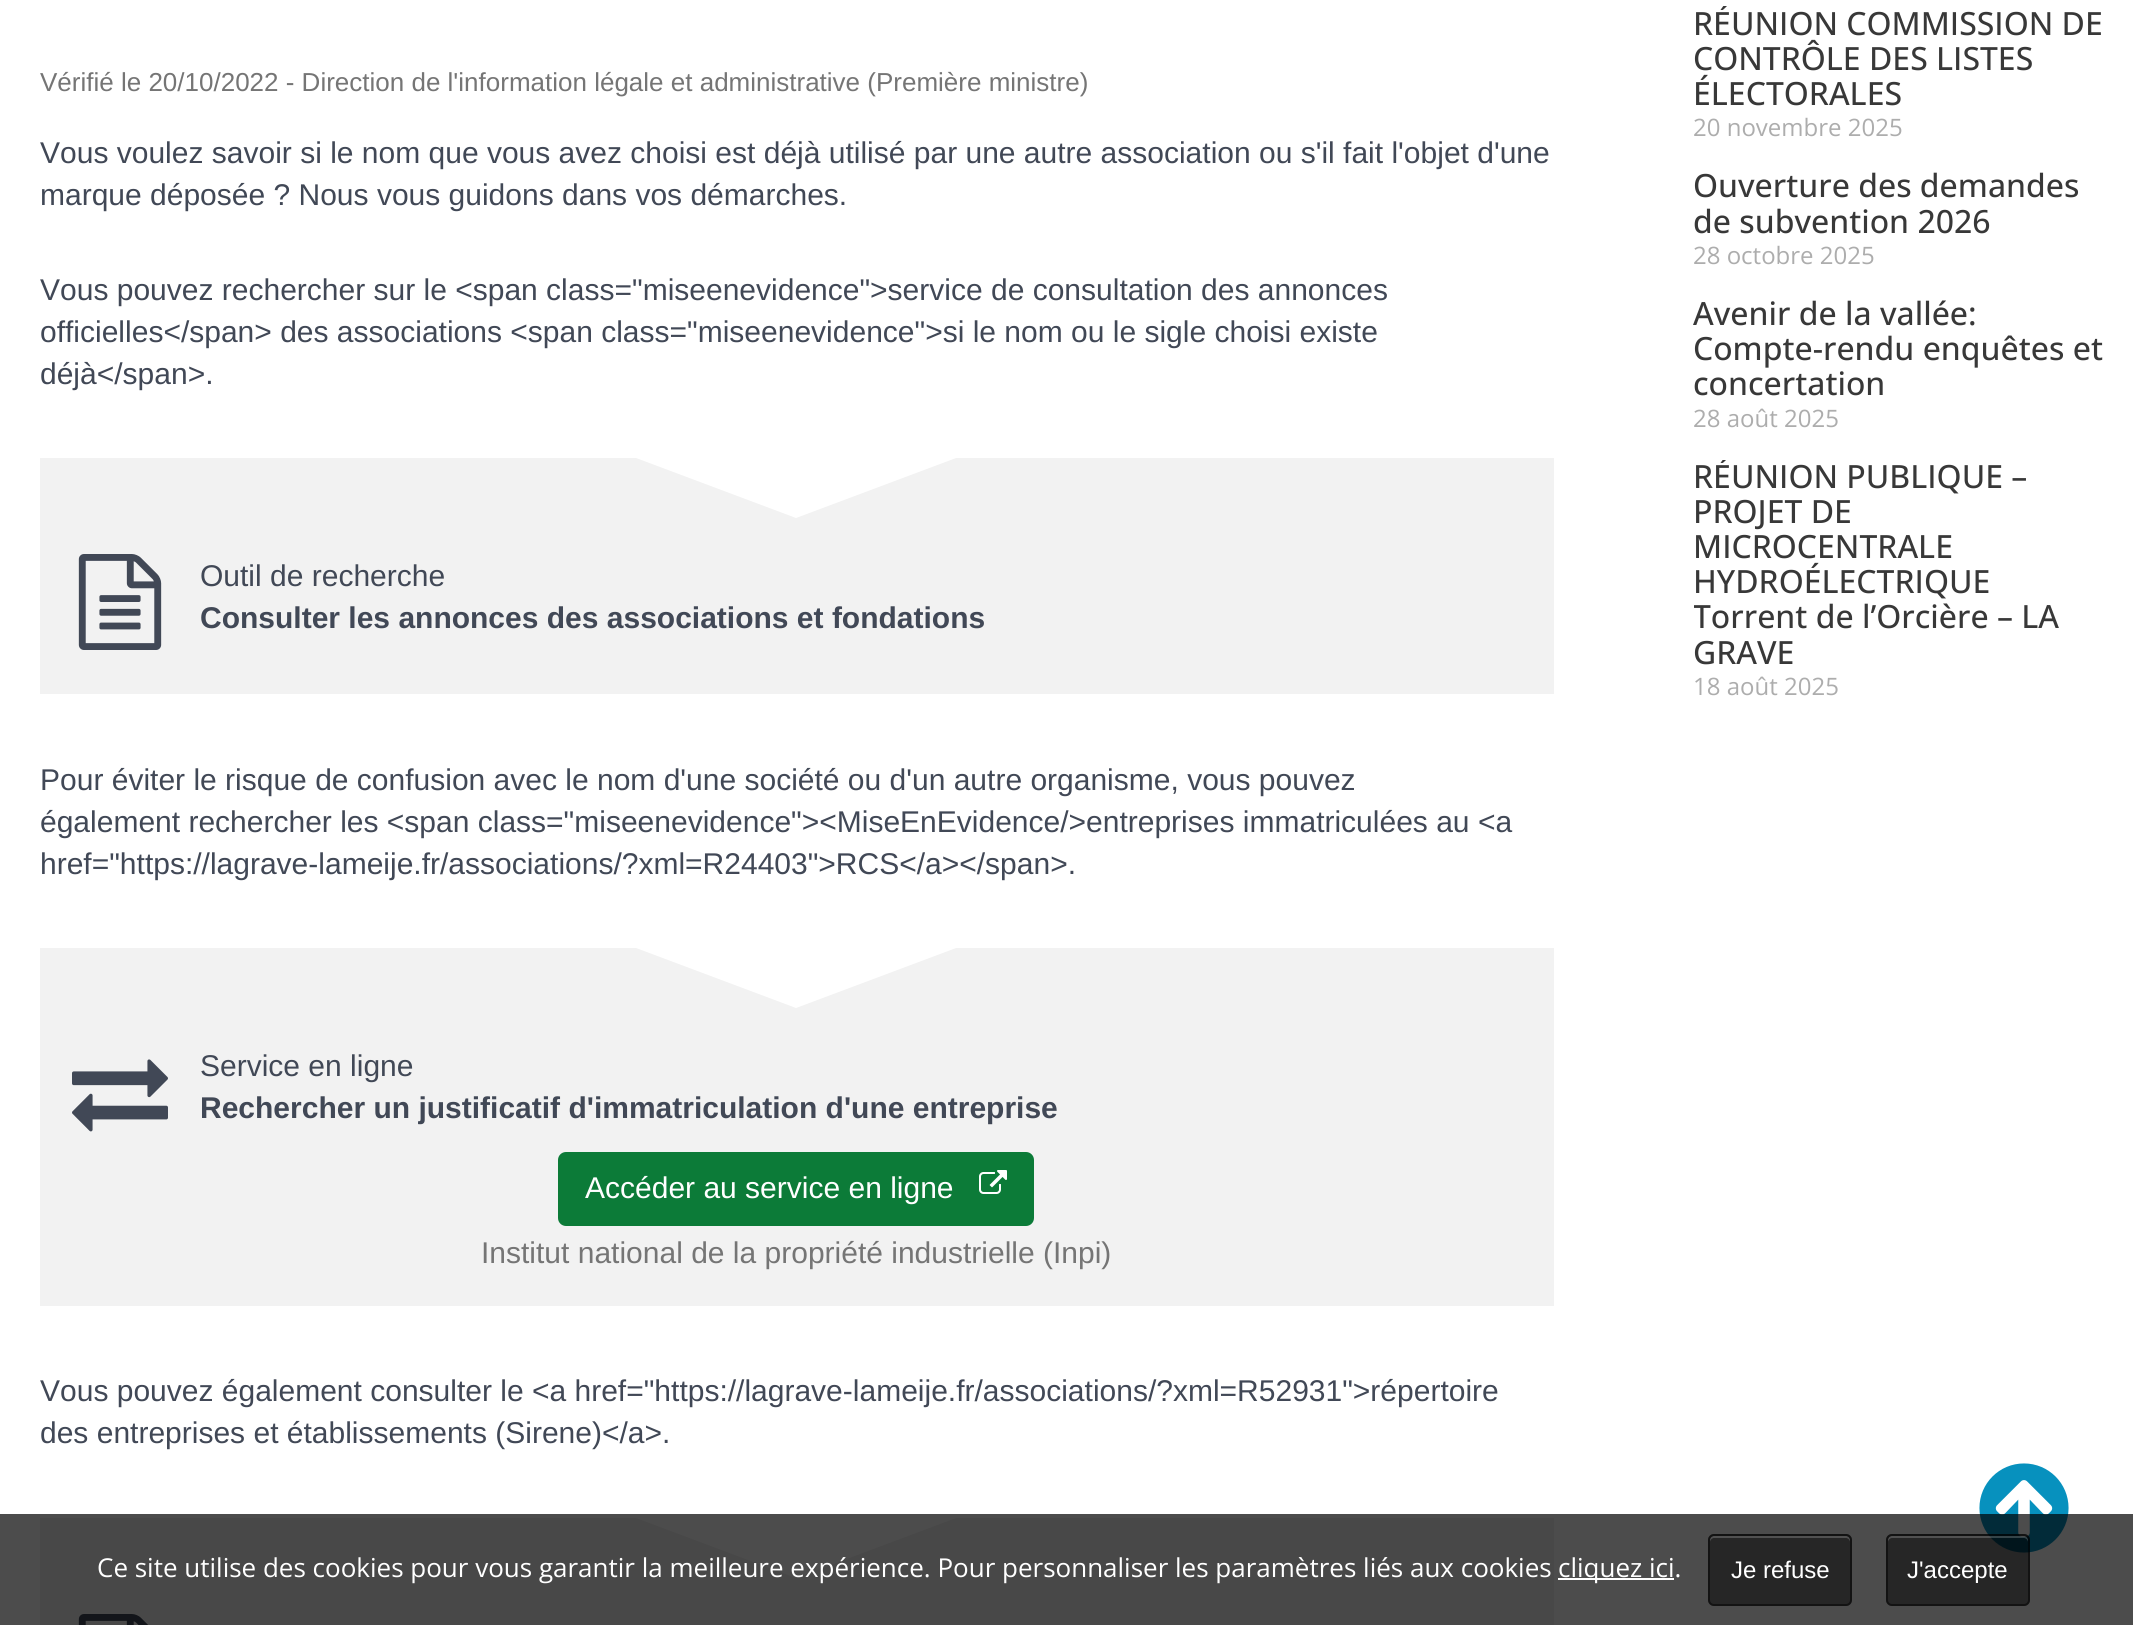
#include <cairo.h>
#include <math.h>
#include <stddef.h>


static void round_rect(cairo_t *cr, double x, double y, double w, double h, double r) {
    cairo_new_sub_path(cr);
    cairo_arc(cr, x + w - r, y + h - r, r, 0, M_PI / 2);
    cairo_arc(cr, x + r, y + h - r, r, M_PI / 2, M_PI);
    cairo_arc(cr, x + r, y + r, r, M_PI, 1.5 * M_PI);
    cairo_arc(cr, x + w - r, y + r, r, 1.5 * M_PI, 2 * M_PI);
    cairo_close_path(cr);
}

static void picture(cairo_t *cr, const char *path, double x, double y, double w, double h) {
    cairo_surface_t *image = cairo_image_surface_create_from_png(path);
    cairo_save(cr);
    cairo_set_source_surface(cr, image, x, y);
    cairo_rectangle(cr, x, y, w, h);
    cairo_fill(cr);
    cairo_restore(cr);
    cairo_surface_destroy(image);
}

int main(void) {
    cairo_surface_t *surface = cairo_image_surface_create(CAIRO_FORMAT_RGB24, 2133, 1625);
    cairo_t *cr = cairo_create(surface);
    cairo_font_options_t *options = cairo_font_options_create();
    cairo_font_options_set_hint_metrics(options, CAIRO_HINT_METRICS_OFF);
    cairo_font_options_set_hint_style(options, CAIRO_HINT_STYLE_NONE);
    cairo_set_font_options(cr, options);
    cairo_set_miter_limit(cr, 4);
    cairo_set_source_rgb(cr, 1, 1, 1);
    cairo_paint(cr);
    cairo_select_font_face(cr, "Liberation Sans", CAIRO_FONT_SLANT_NORMAL, CAIRO_FONT_WEIGHT_NORMAL);
    cairo_set_font_size(cr, 26);
    cairo_set_source_rgb(cr, 0.459, 0.459, 0.459);
    cairo_move_to(cr, 40, 91);
    cairo_show_text(cr, "Vérifié le 20/10/2022 - Direction de l'information légale et administrative (Première ministre)");
    cairo_set_font_size(cr, 30);
    cairo_set_source_rgb(cr, 0.255, 0.282, 0.337);
    cairo_move_to(cr, 40, 163);
    cairo_show_text(cr, "Vous voulez savoir si le nom que vous avez choisi est déjà utilisé par une autre association ou s'il fait l'objet d'une");
    cairo_move_to(cr, 40, 205);
    cairo_show_text(cr, "marque déposée ? Nous vous guidons dans vos démarches.");
    cairo_move_to(cr, 40, 300);
    cairo_show_text(cr, "Vous pouvez rechercher sur le <span class=\"miseenevidence\">service de consultation des annonces");
    cairo_move_to(cr, 40, 342);
    cairo_show_text(cr, "officielles</span> des associations <span class=\"miseenevidence\">si le nom ou le sigle choisi existe");
    cairo_move_to(cr, 40, 384);
    cairo_show_text(cr, "déjà</span>.");
    cairo_set_source_rgb(cr, 0.949, 0.949, 0.949);
    cairo_rectangle(cr, 40, 458, 1514, 236);
    cairo_fill(cr);
    cairo_set_source_rgb(cr, 1, 1, 1);
    cairo_new_path(cr);
    cairo_move_to(cr, 636, 458);
    cairo_line_to(cr, 956, 458);
    cairo_line_to(cr, 796, 518);
    cairo_close_path(cr);
    cairo_fill(cr);
    picture(cr, "img1.png", 78, 554, 84, 96);
    cairo_set_source_rgb(cr, 0.255, 0.282, 0.337);
    cairo_move_to(cr, 200, 586);
    cairo_show_text(cr, "Outil de recherche");
    cairo_select_font_face(cr, "Liberation Sans", CAIRO_FONT_SLANT_NORMAL, CAIRO_FONT_WEIGHT_BOLD);
    cairo_move_to(cr, 200, 628);
    cairo_show_text(cr, "Consulter les annonces des associations et fondations");
    cairo_select_font_face(cr, "Liberation Sans", CAIRO_FONT_SLANT_NORMAL, CAIRO_FONT_WEIGHT_NORMAL);
    cairo_move_to(cr, 40, 790);
    cairo_show_text(cr, "Pour éviter le risque de confusion avec le nom d'une société ou d'un autre organisme, vous pouvez");
    cairo_move_to(cr, 40, 832);
    cairo_show_text(cr, "également rechercher les <span class=\"miseenevidence\"><MiseEnEvidence/>entreprises immatriculées au <a");
    cairo_move_to(cr, 40, 874);
    cairo_show_text(cr, "href=\"https://lagrave-lameije.fr/associations/?xml=R24403\">RCS</a></span>.");
    cairo_set_source_rgb(cr, 0.949, 0.949, 0.949);
    cairo_rectangle(cr, 40, 948, 1514, 358);
    cairo_fill(cr);
    cairo_set_source_rgb(cr, 1, 1, 1);
    cairo_new_path(cr);
    cairo_move_to(cr, 636, 948);
    cairo_line_to(cr, 956, 948);
    cairo_line_to(cr, 796, 1008);
    cairo_close_path(cr);
    cairo_fill(cr);
    picture(cr, "img2.png", 72, 1059, 96, 73);
    cairo_set_source_rgb(cr, 0.255, 0.282, 0.337);
    cairo_move_to(cr, 200, 1076);
    cairo_show_text(cr, "Service en ligne");
    cairo_select_font_face(cr, "Liberation Sans", CAIRO_FONT_SLANT_NORMAL, CAIRO_FONT_WEIGHT_BOLD);
    cairo_move_to(cr, 200, 1118);
    cairo_show_text(cr, "Rechercher un justificatif d'immatriculation d'une entreprise");
    cairo_set_source_rgb(cr, 0.047, 0.482, 0.22);
    round_rect(cr, 558, 1152, 476, 74, 8);
    cairo_fill(cr);
    cairo_select_font_face(cr, "Liberation Sans", CAIRO_FONT_SLANT_NORMAL, CAIRO_FONT_WEIGHT_NORMAL);
    cairo_set_source_rgb(cr, 1, 1, 1);
    cairo_move_to(cr, 585, 1198);
    cairo_show_text(cr, "Accéder au service en ligne");
    picture(cr, "img3.png", 979, 1170, 28, 24);
    cairo_set_source_rgb(cr, 0.459, 0.459, 0.459);
    cairo_move_to(cr, 481, 1263);
    cairo_show_text(cr, "Institut national de la propriété industrielle (Inpi)");
    cairo_set_source_rgb(cr, 0.255, 0.282, 0.337);
    cairo_move_to(cr, 40, 1401);
    cairo_show_text(cr, "Vous pouvez également consulter le <a href=\"https://lagrave-lameije.fr/associations/?xml=R52931\">répertoire");
    cairo_move_to(cr, 40, 1443);
    cairo_show_text(cr, "des entreprises et établissements (Sirene)</a>.");
    cairo_set_source_rgb(cr, 0.949, 0.949, 0.949);
    cairo_rectangle(cr, 40, 1518, 1514, 107);
    cairo_fill(cr);
    cairo_set_source_rgb(cr, 1, 1, 1);
    cairo_new_path(cr);
    cairo_move_to(cr, 636, 1518);
    cairo_line_to(cr, 956, 1518);
    cairo_line_to(cr, 796, 1578);
    cairo_close_path(cr);
    cairo_fill(cr);
    picture(cr, "img4.png", 78, 1614, 70, 11);
    cairo_save(cr);
    cairo_rectangle(cr, 1694, 6, 412, 164);
    cairo_clip(cr);
    cairo_select_font_face(cr, "Open Sans Medium", CAIRO_FONT_SLANT_NORMAL, CAIRO_FONT_WEIGHT_NORMAL);
    cairo_set_font_size(cr, 32);
    cairo_set_source_rgb(cr, 0.22, 0.22, 0.22);
    cairo_move_to(cr, 1693, 35);
    cairo_show_text(cr, "RÉUNION COMMISSION DE");
    cairo_restore(cr);
    cairo_select_font_face(cr, "Open Sans Medium", CAIRO_FONT_SLANT_NORMAL, CAIRO_FONT_WEIGHT_NORMAL);
    cairo_set_font_size(cr, 32);
    cairo_set_source_rgb(cr, 0.22, 0.22, 0.22);
    cairo_move_to(cr, 1693, 70);
    cairo_show_text(cr, "CONTRÔLE DES LISTES");
    cairo_move_to(cr, 1693, 105);
    cairo_show_text(cr, "ÉLECTORALES");
    cairo_select_font_face(cr, "Open Sans", CAIRO_FONT_SLANT_NORMAL, CAIRO_FONT_WEIGHT_NORMAL);
    cairo_set_font_size(cr, 24);
    cairo_set_source_rgb(cr, 0.678, 0.678, 0.678);
    cairo_move_to(cr, 1693, 136);
    cairo_show_text(cr, "20 novembre 2025");
    cairo_select_font_face(cr, "Open Sans Medium", CAIRO_FONT_SLANT_NORMAL, CAIRO_FONT_WEIGHT_NORMAL);
    cairo_set_font_size(cr, 32);
    cairo_set_source_rgb(cr, 0.22, 0.22, 0.22);
    cairo_move_to(cr, 1693, 197);
    cairo_show_text(cr, "Ouverture des demandes");
    cairo_move_to(cr, 1693, 233);
    cairo_show_text(cr, "de subvention 2026");
    cairo_select_font_face(cr, "Open Sans", CAIRO_FONT_SLANT_NORMAL, CAIRO_FONT_WEIGHT_NORMAL);
    cairo_set_font_size(cr, 24);
    cairo_set_source_rgb(cr, 0.678, 0.678, 0.678);
    cairo_move_to(cr, 1693, 264);
    cairo_show_text(cr, "28 octobre 2025");
    cairo_select_font_face(cr, "Open Sans Medium", CAIRO_FONT_SLANT_NORMAL, CAIRO_FONT_WEIGHT_NORMAL);
    cairo_set_font_size(cr, 32);
    cairo_set_source_rgb(cr, 0.22, 0.22, 0.22);
    cairo_move_to(cr, 1693, 325);
    cairo_show_text(cr, "Avenir de la vallée:");
    cairo_move_to(cr, 1693, 360);
    cairo_show_text(cr, "Compte-rendu enquêtes et");
    cairo_move_to(cr, 1693, 395);
    cairo_show_text(cr, "concertation");
    cairo_select_font_face(cr, "Open Sans", CAIRO_FONT_SLANT_NORMAL, CAIRO_FONT_WEIGHT_NORMAL);
    cairo_set_font_size(cr, 24);
    cairo_set_source_rgb(cr, 0.678, 0.678, 0.678);
    cairo_move_to(cr, 1693, 427);
    cairo_show_text(cr, "28 août 2025");
    cairo_save(cr);
    cairo_rectangle(cr, 1694, 460, 412, 268);
    cairo_clip(cr);
    cairo_select_font_face(cr, "Open Sans Medium", CAIRO_FONT_SLANT_NORMAL, CAIRO_FONT_WEIGHT_NORMAL);
    cairo_set_font_size(cr, 32);
    cairo_set_source_rgb(cr, 0.22, 0.22, 0.22);
    cairo_move_to(cr, 1693, 488);
    cairo_show_text(cr, "RÉUNION PUBLIQUE –");
    cairo_restore(cr);
    cairo_select_font_face(cr, "Open Sans Medium", CAIRO_FONT_SLANT_NORMAL, CAIRO_FONT_WEIGHT_NORMAL);
    cairo_set_font_size(cr, 32);
    cairo_set_source_rgb(cr, 0.22, 0.22, 0.22);
    cairo_move_to(cr, 1693, 523);
    cairo_show_text(cr, "PROJET DE");
    cairo_move_to(cr, 1693, 558);
    cairo_show_text(cr, "MICROCENTRALE");
    cairo_move_to(cr, 1693, 593);
    cairo_show_text(cr, "HYDROÉLECTRIQUE");
    cairo_save(cr);
    cairo_rectangle(cr, 1694, 460, 412, 268);
    cairo_clip(cr);
    cairo_move_to(cr, 1693, 628);
    cairo_show_text(cr, "Torrent de l’Orcière – LA");
    cairo_restore(cr);
    cairo_move_to(cr, 1693, 664);
    cairo_show_text(cr, "GRAVE");
    cairo_select_font_face(cr, "Open Sans", CAIRO_FONT_SLANT_NORMAL, CAIRO_FONT_WEIGHT_NORMAL);
    cairo_set_font_size(cr, 24);
    cairo_set_source_rgb(cr, 0.678, 0.678, 0.678);
    cairo_move_to(cr, 1693, 695);
    cairo_show_text(cr, "18 août 2025");
    picture(cr, "img5.png", 1979, 1463, 90, 90);
    cairo_set_source_rgba(cr, 0, 0, 0, 0.7);
    cairo_rectangle(cr, 0, 1514, 2133, 111);
    cairo_fill(cr);
    cairo_set_font_size(cr, 26);
    cairo_set_source_rgb(cr, 1, 1, 1);
    cairo_move_to(cr, 97, 1577);
    cairo_show_text(cr, "Ce site utilise des cookies pour vous garantir la meilleure expérience. Pour personnaliser les paramètres liés aux cookies");
    cairo_rectangle(cr, 1558, 1578, 116, 2);
    cairo_fill(cr);
    cairo_move_to(cr, 1558, 1577);
    cairo_show_text(cr, "cliquez ici.");
    cairo_set_source_rgb(cr, 0.149, 0.149, 0.149);
    round_rect(cr, 1708, 1534, 144, 72, 6);
    cairo_fill(cr);
    cairo_set_source_rgb(cr, 0.318, 0.318, 0.318);
    cairo_new_path(cr);
    cairo_move_to(cr, 1714, 1538);
    cairo_line_to(cr, 1846, 1538);
    cairo_curve_to(cr, 1848, 1538, 1850, 1540, 1850, 1542);
    cairo_line_to(cr, 1850, 1540);
    cairo_curve_to(cr, 1850, 1538, 1848, 1536, 1846, 1536);
    cairo_line_to(cr, 1714, 1536);
    cairo_curve_to(cr, 1712, 1536, 1710, 1538, 1710, 1540);
    cairo_line_to(cr, 1710, 1542);
    cairo_curve_to(cr, 1710, 1540, 1712, 1538, 1714, 1538);
    cairo_close_path(cr);
    cairo_fill(cr);
    round_rect(cr, 1709, 1535, 142, 70, 5);
    cairo_set_source_rgba(cr, 0, 0, 0, 0.5);
    cairo_stroke(cr);
    cairo_select_font_face(cr, "Liberation Sans", CAIRO_FONT_SLANT_NORMAL, CAIRO_FONT_WEIGHT_NORMAL);
    cairo_set_font_size(cr, 24);
    cairo_set_source_rgb(cr, 1, 1, 1);
    cairo_move_to(cr, 1731, 1578);
    cairo_show_text(cr, "Je refuse");
    cairo_set_source_rgba(cr, 0, 0, 0, 0.5);
    round_rect(cr, 1886, 1534, 144, 72, 6);
    cairo_fill(cr);
    cairo_set_source_rgba(cr, 1, 1, 1, 0.2);
    cairo_new_path(cr);
    cairo_move_to(cr, 1892, 1538);
    cairo_line_to(cr, 2024, 1538);
    cairo_curve_to(cr, 2026, 1538, 2028, 1540, 2028, 1542);
    cairo_line_to(cr, 2028, 1540);
    cairo_curve_to(cr, 2028, 1538, 2026, 1536, 2024, 1536);
    cairo_line_to(cr, 1892, 1536);
    cairo_curve_to(cr, 1890, 1536, 1888, 1538, 1888, 1540);
    cairo_line_to(cr, 1888, 1542);
    cairo_curve_to(cr, 1888, 1540, 1890, 1538, 1892, 1538);
    cairo_close_path(cr);
    cairo_fill(cr);
    round_rect(cr, 1887, 1535, 142, 70, 5);
    cairo_set_source_rgba(cr, 0, 0, 0, 0.5);
    cairo_stroke(cr);
    cairo_set_source_rgb(cr, 1, 1, 1);
    cairo_move_to(cr, 1907, 1578);
    cairo_show_text(cr, "J'accepte");
    cairo_surface_write_to_png(surface, "page.png");
    cairo_font_options_destroy(options);
    cairo_destroy(cr);
    cairo_surface_destroy(surface);
    return 0;
}
